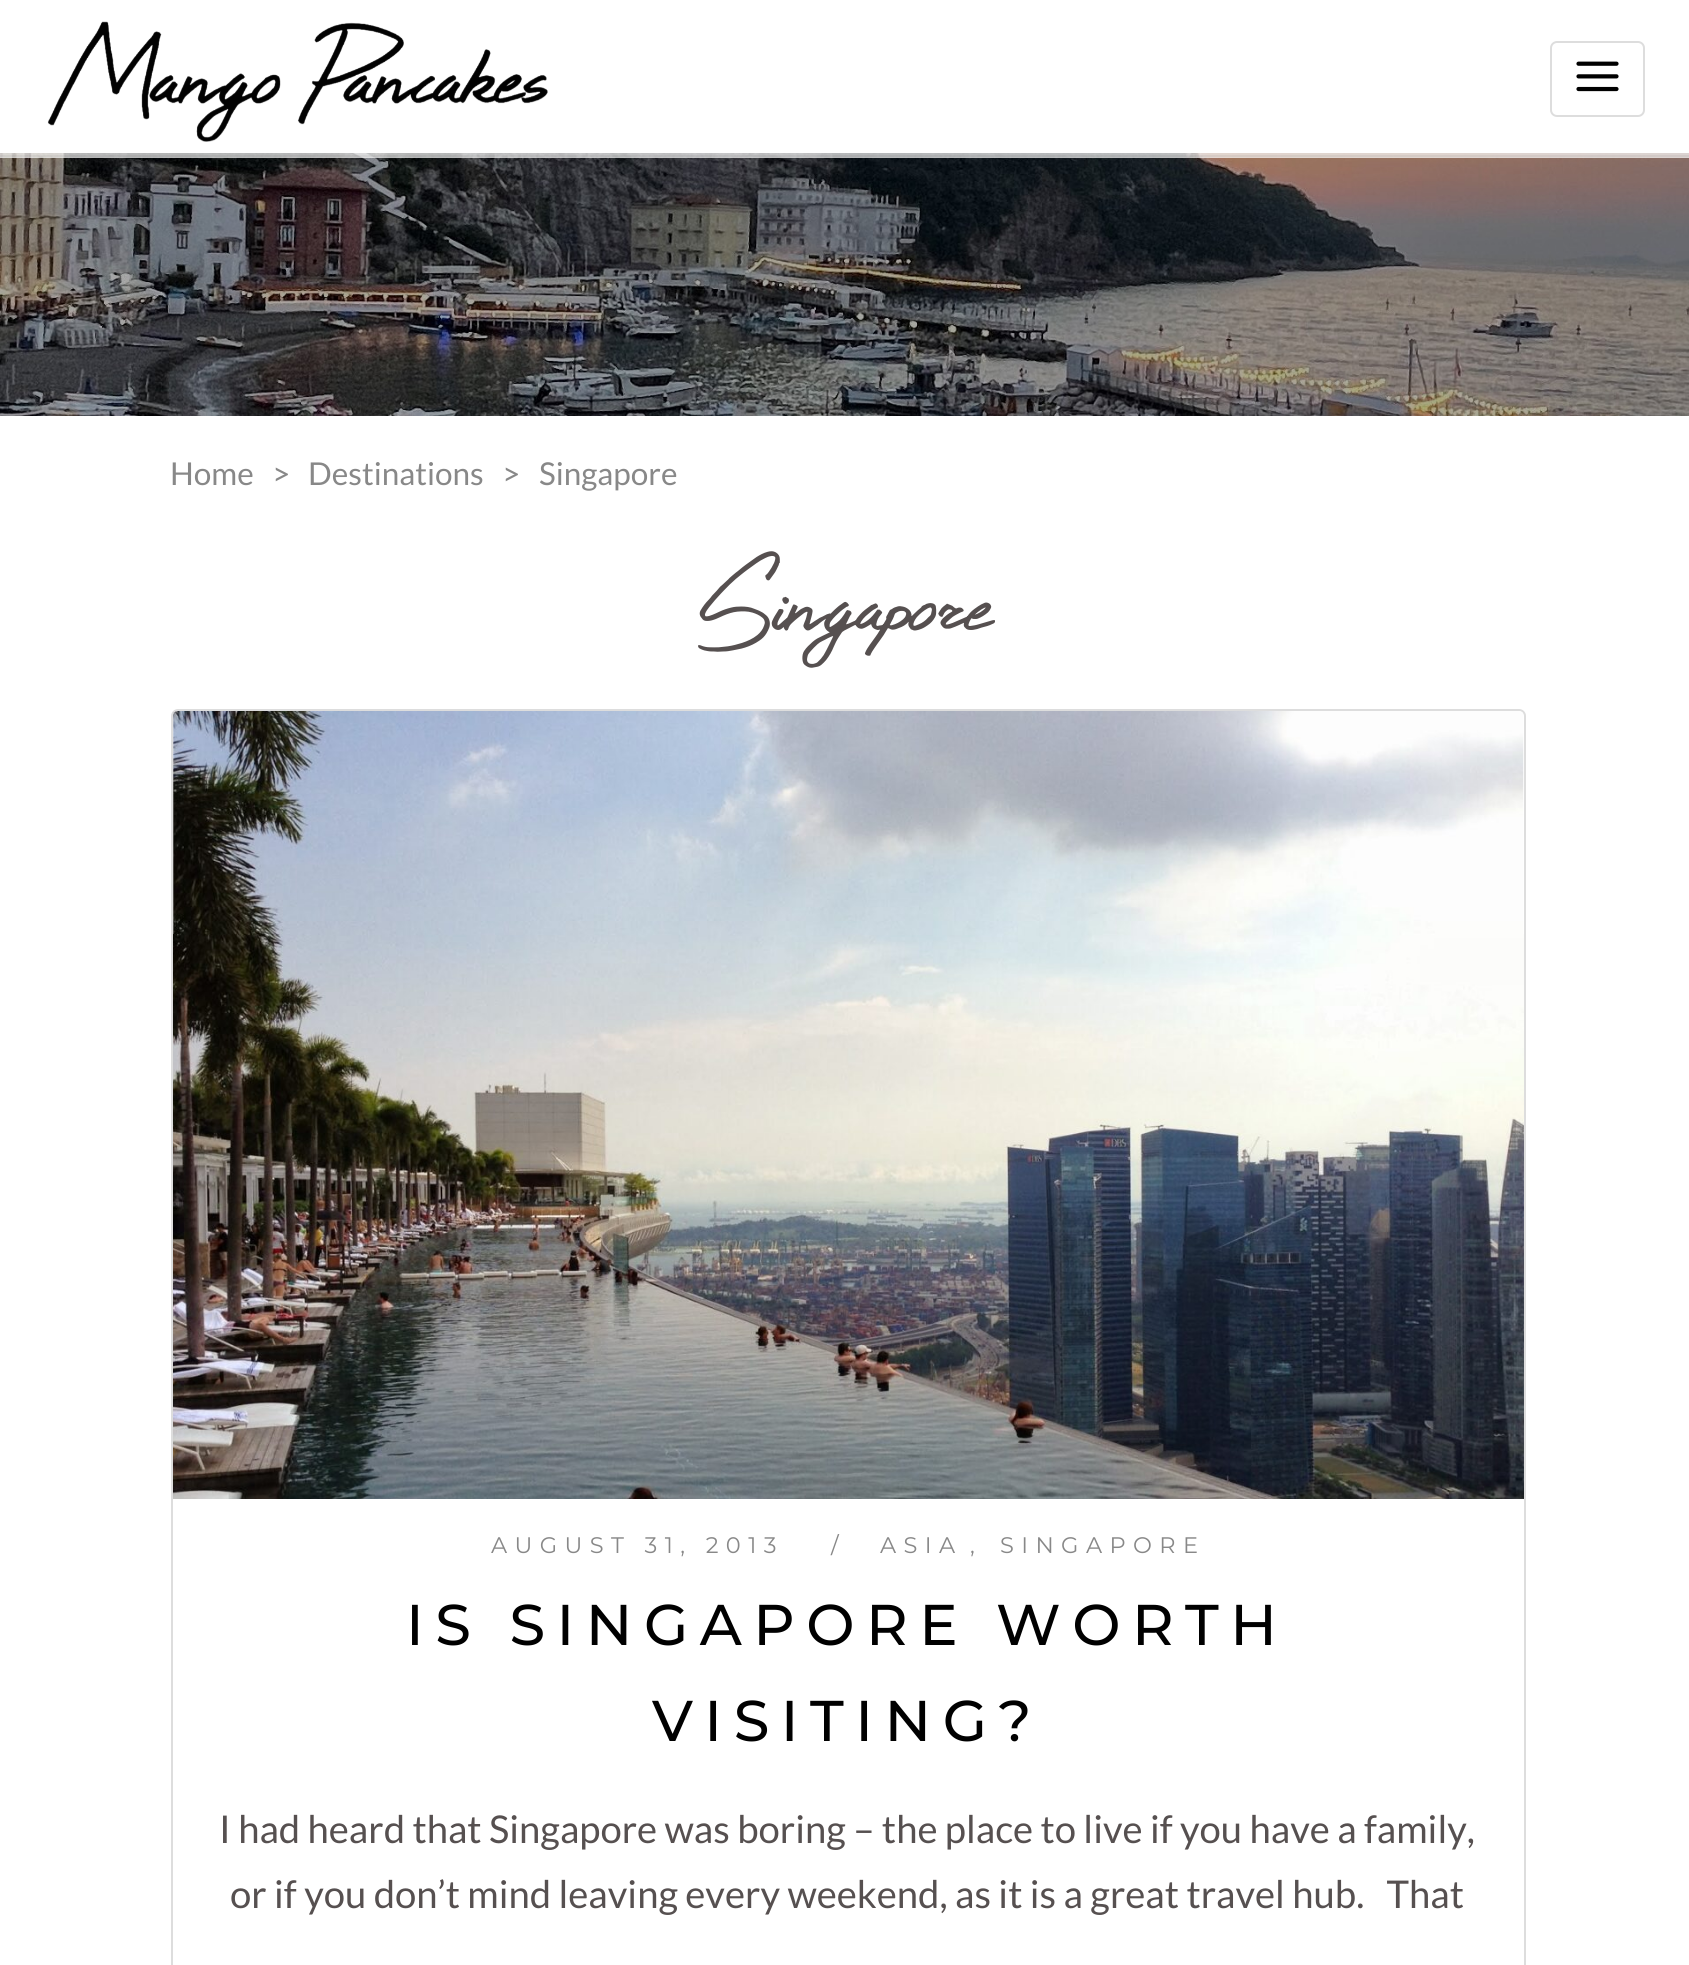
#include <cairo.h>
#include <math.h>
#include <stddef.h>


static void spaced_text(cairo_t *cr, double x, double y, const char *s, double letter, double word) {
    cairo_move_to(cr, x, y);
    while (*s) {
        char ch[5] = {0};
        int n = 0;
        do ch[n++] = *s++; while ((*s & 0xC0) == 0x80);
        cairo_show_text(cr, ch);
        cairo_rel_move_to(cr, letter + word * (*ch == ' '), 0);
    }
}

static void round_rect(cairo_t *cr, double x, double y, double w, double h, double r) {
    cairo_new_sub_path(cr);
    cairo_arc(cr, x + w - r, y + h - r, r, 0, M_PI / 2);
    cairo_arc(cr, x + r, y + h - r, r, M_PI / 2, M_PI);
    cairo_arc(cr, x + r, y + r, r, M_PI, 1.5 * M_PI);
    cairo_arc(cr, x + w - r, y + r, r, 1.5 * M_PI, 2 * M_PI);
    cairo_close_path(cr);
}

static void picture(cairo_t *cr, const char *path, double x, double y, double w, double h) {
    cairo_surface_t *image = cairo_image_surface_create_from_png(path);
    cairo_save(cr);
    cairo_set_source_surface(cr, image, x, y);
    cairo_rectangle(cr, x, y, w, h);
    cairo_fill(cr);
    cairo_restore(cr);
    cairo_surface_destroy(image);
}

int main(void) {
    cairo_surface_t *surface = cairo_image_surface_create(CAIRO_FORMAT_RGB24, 1689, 1965);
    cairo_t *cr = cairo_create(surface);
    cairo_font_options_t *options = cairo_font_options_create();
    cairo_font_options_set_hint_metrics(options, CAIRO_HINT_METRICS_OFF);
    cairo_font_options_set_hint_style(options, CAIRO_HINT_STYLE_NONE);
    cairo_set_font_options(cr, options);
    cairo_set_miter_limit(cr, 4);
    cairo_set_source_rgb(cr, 1, 1, 1);
    cairo_paint(cr);
    picture(cr, "img3.png", 0, 153, 1689, 263);
    cairo_set_source_rgba(cr, 1, 1, 1, 0.7);
    cairo_rectangle(cr, 0, 153, 1689, 5);
    cairo_fill(cr);
    cairo_set_source_rgba(cr, 0, 0, 0, 0.05);
    cairo_rectangle(cr, 0, 155, 1689, 2);
    cairo_fill(cr);
    picture(cr, "img1.png", 47, 21, 501, 121);
    round_rect(cr, 1551, 42, 93, 74, 6);
    cairo_set_source_rgb(cr, 0.867, 0.867, 0.867);
    cairo_stroke(cr);
    picture(cr, "img2.png", 1576, 61, 43, 31);
    cairo_select_font_face(cr, "Lato", CAIRO_FONT_SLANT_NORMAL, CAIRO_FONT_WEIGHT_NORMAL);
    cairo_set_font_size(cr, 31.5);
    cairo_set_source_rgb(cr, 0.533, 0.533, 0.533);
    cairo_move_to(cr, 170, 485);
    cairo_show_text(cr, "Home");
    cairo_move_to(cr, 272, 485);
    cairo_show_text(cr, ">");
    cairo_move_to(cr, 308, 485);
    cairo_show_text(cr, "Destinations");
    cairo_move_to(cr, 502, 485);
    cairo_show_text(cr, ">");
    cairo_move_to(cr, 539, 485);
    cairo_show_text(cr, "Singapore");
    cairo_select_font_face(cr, "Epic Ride", CAIRO_FONT_SLANT_NORMAL, CAIRO_FONT_WEIGHT_NORMAL);
    cairo_set_font_size(cr, 135);
    cairo_set_source_rgb(cr, 0.337, 0.314, 0.314);
    cairo_move_to(cr, 698, 630);
    cairo_show_text(cr, "Singapore");
    round_rect(cr, 172, 710, 1353, 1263, 6);
    cairo_set_source_rgb(cr, 0.867, 0.867, 0.867);
    cairo_stroke(cr);
    picture(cr, "img4.png", 173, 711, 1351, 788);
    cairo_select_font_face(cr, "Montserrat", CAIRO_FONT_SLANT_NORMAL, CAIRO_FONT_WEIGHT_NORMAL);
    cairo_set_font_size(cr, 22.5);
    cairo_set_source_rgb(cr, 0.533, 0.533, 0.533);
    spaced_text(cr, 491, 1553, "AUGUST 31, 2013", 7.4, 0);
    spaced_text(cr, 831, 1553, "/", 7.4, 0);
    spaced_text(cr, 880, 1553, "ASIA", 7.4, 0);
    spaced_text(cr, 970, 1553, ",", 7.4, 0);
    spaced_text(cr, 1000, 1553, "SINGAPORE", 7.4, 0);
    cairo_select_font_face(cr, "Montserrat Medium", CAIRO_FONT_SLANT_NORMAL, CAIRO_FONT_WEIGHT_NORMAL);
    cairo_set_font_size(cr, 57.4);
    cairo_set_source_rgb(cr, 0, 0, 0);
    spaced_text(cr, 406, 1645, "IS SINGAPORE WORTH", 11.5, 0);
    spaced_text(cr, 652, 1741, "VISITING?", 11.5, 0);
    cairo_select_font_face(cr, "Lato", CAIRO_FONT_SLANT_NORMAL, CAIRO_FONT_WEIGHT_NORMAL);
    cairo_set_font_size(cr, 38.25);
    cairo_set_source_rgb(cr, 0.337, 0.314, 0.314);
    cairo_move_to(cr, 219, 1843);
    cairo_show_text(cr, "I had heard that Singapore was boring – the place to live if you have a family,");
    cairo_move_to(cr, 230, 1908);
    cairo_show_text(cr, "or if you don’t mind leaving every weekend, as it is a great travel hub.   That");
    cairo_surface_write_to_png(surface, "page.png");
    cairo_font_options_destroy(options);
    cairo_destroy(cr);
    cairo_surface_destroy(surface);
    return 0;
}
